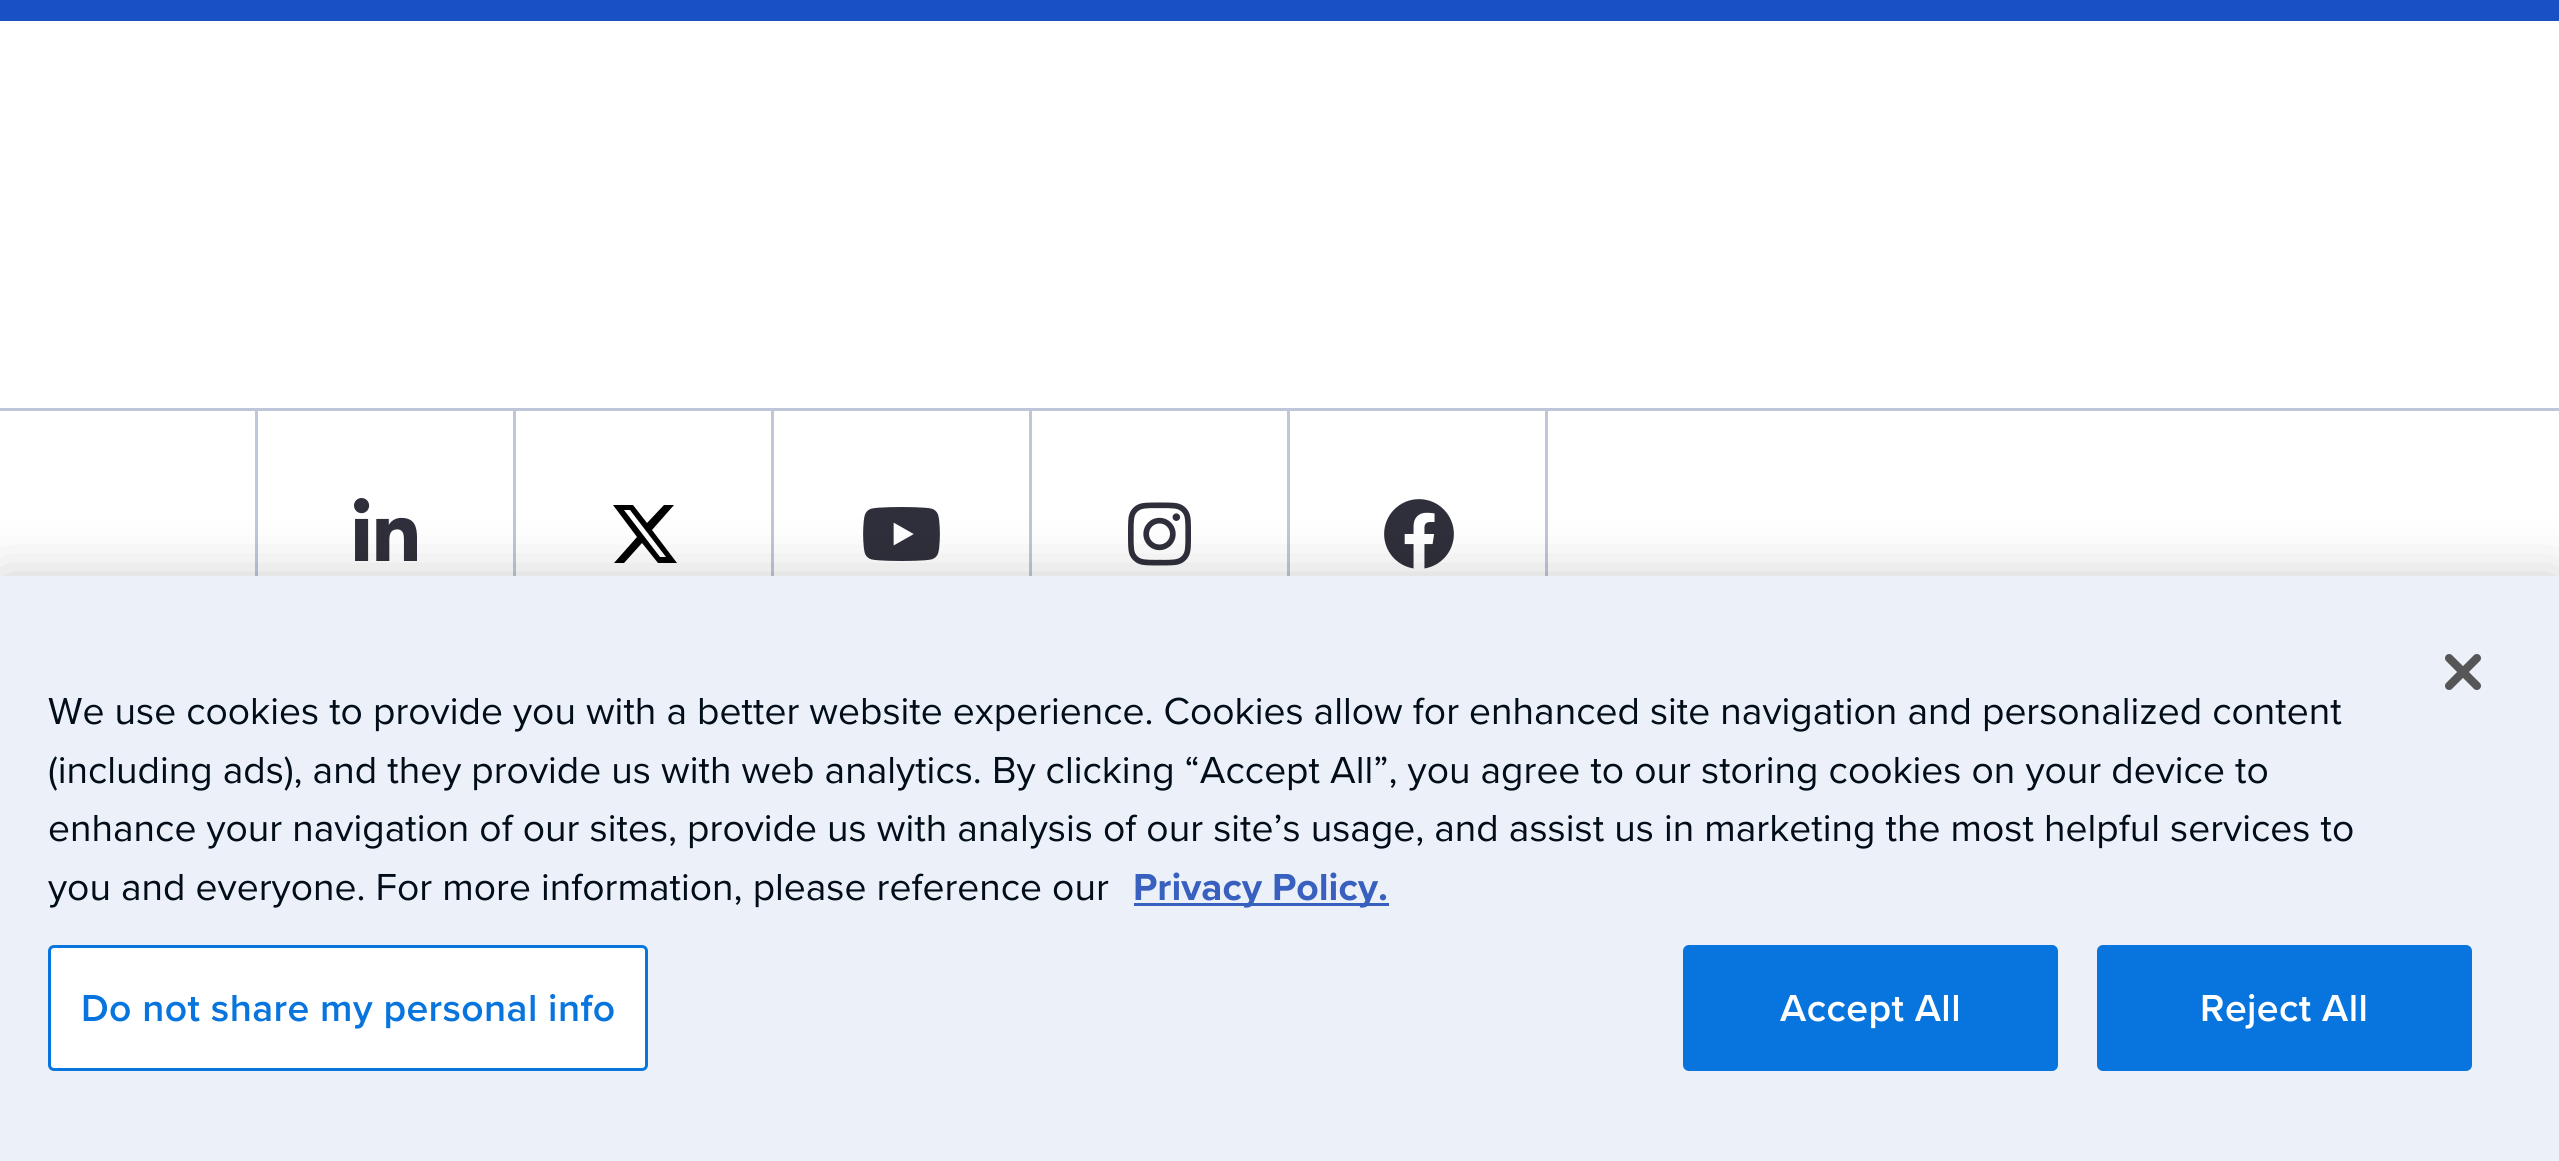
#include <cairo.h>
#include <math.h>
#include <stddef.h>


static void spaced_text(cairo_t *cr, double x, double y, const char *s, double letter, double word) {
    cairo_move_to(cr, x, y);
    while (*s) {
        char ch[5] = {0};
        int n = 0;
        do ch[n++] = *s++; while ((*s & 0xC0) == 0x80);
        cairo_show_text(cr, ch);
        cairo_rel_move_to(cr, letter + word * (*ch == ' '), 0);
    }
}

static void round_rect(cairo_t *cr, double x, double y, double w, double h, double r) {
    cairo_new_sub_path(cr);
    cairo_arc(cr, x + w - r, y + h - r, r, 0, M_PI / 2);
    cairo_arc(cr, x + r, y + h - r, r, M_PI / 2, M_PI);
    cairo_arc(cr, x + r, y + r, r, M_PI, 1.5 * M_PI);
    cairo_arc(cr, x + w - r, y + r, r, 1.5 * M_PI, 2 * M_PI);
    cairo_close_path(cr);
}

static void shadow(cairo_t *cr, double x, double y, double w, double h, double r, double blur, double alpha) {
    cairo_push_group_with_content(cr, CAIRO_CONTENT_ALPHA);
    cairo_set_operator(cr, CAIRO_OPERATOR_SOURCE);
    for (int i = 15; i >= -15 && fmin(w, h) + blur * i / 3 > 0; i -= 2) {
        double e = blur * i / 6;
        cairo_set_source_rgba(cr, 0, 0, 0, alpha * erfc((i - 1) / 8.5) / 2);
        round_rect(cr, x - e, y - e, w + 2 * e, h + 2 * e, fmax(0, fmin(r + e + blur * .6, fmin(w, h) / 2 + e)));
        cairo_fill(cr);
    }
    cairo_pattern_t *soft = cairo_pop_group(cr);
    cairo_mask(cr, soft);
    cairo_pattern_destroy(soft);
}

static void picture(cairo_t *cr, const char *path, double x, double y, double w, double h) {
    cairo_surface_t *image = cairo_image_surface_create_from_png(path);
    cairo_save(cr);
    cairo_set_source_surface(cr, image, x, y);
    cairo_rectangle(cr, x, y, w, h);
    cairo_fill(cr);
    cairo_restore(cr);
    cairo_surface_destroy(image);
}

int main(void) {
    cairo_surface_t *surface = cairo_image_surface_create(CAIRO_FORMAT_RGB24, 2559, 1161);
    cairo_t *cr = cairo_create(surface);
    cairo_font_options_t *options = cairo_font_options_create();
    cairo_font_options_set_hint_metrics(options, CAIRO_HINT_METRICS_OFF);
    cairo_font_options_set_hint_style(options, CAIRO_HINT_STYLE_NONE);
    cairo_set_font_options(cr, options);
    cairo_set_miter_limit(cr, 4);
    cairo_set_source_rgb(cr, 1, 1, 1);
    cairo_paint(cr);
    cairo_set_source_rgb(cr, 0.098, 0.318, 0.769);
    cairo_rectangle(cr, 0, 0, 2559, 21);
    cairo_fill(cr);
    cairo_set_source_rgb(cr, 0.749, 0.776, 0.855);
    cairo_rectangle(cr, 0, 408, 2559, 3);
    cairo_fill(cr);
    cairo_rectangle(cr, 255, 411, 3, 165);
    cairo_fill(cr);
    picture(cr, "img1.png", 354, 498, 63, 63);
    cairo_rectangle(cr, 513, 411, 3, 165);
    cairo_fill(cr);
    cairo_set_source_rgb(cr, 0, 0, 0);
    cairo_new_path(cr);
    cairo_move_to(cr, 664, 505);
    cairo_line_to(cr, 674, 505);
    cairo_line_to(cr, 652, 530);
    cairo_line_to(cr, 677, 563);
    cairo_line_to(cr, 658, 563);
    cairo_line_to(cr, 642, 543);
    cairo_line_to(cr, 624, 563);
    cairo_line_to(cr, 614, 563);
    cairo_line_to(cr, 637, 537);
    cairo_line_to(cr, 613, 505);
    cairo_line_to(cr, 633, 505);
    cairo_line_to(cr, 647, 523);
    cairo_close_path(cr);
    cairo_move_to(cr, 660, 557);
    cairo_line_to(cr, 666, 557);
    cairo_line_to(cr, 630, 510);
    cairo_line_to(cr, 624, 510);
    cairo_close_path(cr);
    cairo_fill(cr);
    cairo_set_source_rgb(cr, 0.749, 0.776, 0.855);
    cairo_rectangle(cr, 771, 411, 3, 165);
    cairo_fill(cr);
    picture(cr, "img2.png", 863, 507, 77, 54);
    cairo_rectangle(cr, 1029, 411, 3, 165);
    cairo_fill(cr);
    picture(cr, "img3.png", 1128, 502, 63, 64);
    cairo_rectangle(cr, 1545, 411, 3, 165);
    cairo_fill(cr);
    cairo_rectangle(cr, 1287, 411, 3, 165);
    cairo_fill(cr);
    picture(cr, "img4.png", 1384, 499, 70, 70);
    cairo_set_source_rgb(cr, 0, 0, 0);
    shadow(cr, 0, 576, 2559, 585, 0, 27, 0.2);
    cairo_set_source_rgb(cr, 0.922, 0.941, 0.976);
    cairo_rectangle(cr, 0, 576, 2559, 585);
    cairo_fill(cr);
    picture(cr, "img5.png", 2445, 654, 36, 36);
    cairo_select_font_face(cr, "Proxima Nova", CAIRO_FONT_SLANT_NORMAL, CAIRO_FONT_WEIGHT_NORMAL);
    cairo_set_font_size(cr, 39.02);
    cairo_set_source_rgb(cr, 0.004, 0.055, 0.102);
    cairo_move_to(cr, 48, 724);
    cairo_show_text(cr, "We use cookies to provide you with a better website experience. Cookies allow for enhanced site navigation and personalized content");
    cairo_move_to(cr, 48, 783);
    cairo_show_text(cr, "(including ads), and they provide us with web analytics. By clicking “Accept All”, you agree to our storing cookies on your device to");
    cairo_move_to(cr, 48, 841);
    cairo_show_text(cr, "enhance your navigation of our sites, provide us with analysis of our site’s usage, and assist us in marketing the most helpful services to");
    cairo_move_to(cr, 48, 900);
    cairo_show_text(cr, "you and everyone. For more information, please reference our");
    cairo_set_source_rgb(cr, 0.22, 0.376, 0.745);
    cairo_rectangle(cr, 1134, 903, 255, 3);
    cairo_fill(cr);
    cairo_select_font_face(cr, "Proxima Nova", CAIRO_FONT_SLANT_NORMAL, CAIRO_FONT_WEIGHT_BOLD);
    cairo_move_to(cr, 1133, 900);
    cairo_show_text(cr, "Privacy Policy.");
    cairo_set_source_rgb(cr, 1, 1, 1);
    round_rect(cr, 49.5, 946.5, 597, 123, 4.5);
    cairo_fill_preserve(cr);
    cairo_set_source_rgb(cr, 0.035, 0.459, 0.871);
    cairo_set_line_width(cr, 3);
    cairo_stroke(cr);
    cairo_select_font_face(cr, "Proxima Nova SemiBold", CAIRO_FONT_SLANT_NORMAL, CAIRO_FONT_WEIGHT_NORMAL);
    spaced_text(cr, 81, 1021, "Do not share my personal info", 0.4, 0);
    round_rect(cr, 1684.5, 946.5, 372, 123, 4.5);
    cairo_fill_preserve(cr);
    cairo_stroke(cr);
    cairo_set_source_rgb(cr, 1, 1, 1);
    spaced_text(cr, 1780, 1021, "Accept All", 0.4, 0);
    cairo_set_source_rgb(cr, 0.035, 0.459, 0.871);
    round_rect(cr, 2098.5, 946.5, 372, 123, 4.5);
    cairo_fill_preserve(cr);
    cairo_stroke(cr);
    cairo_set_source_rgb(cr, 1, 1, 1);
    spaced_text(cr, 2200, 1021, "Reject All", 0.4, 0);
    cairo_surface_write_to_png(surface, "page.png");
    cairo_font_options_destroy(options);
    cairo_destroy(cr);
    cairo_surface_destroy(surface);
    return 0;
}
